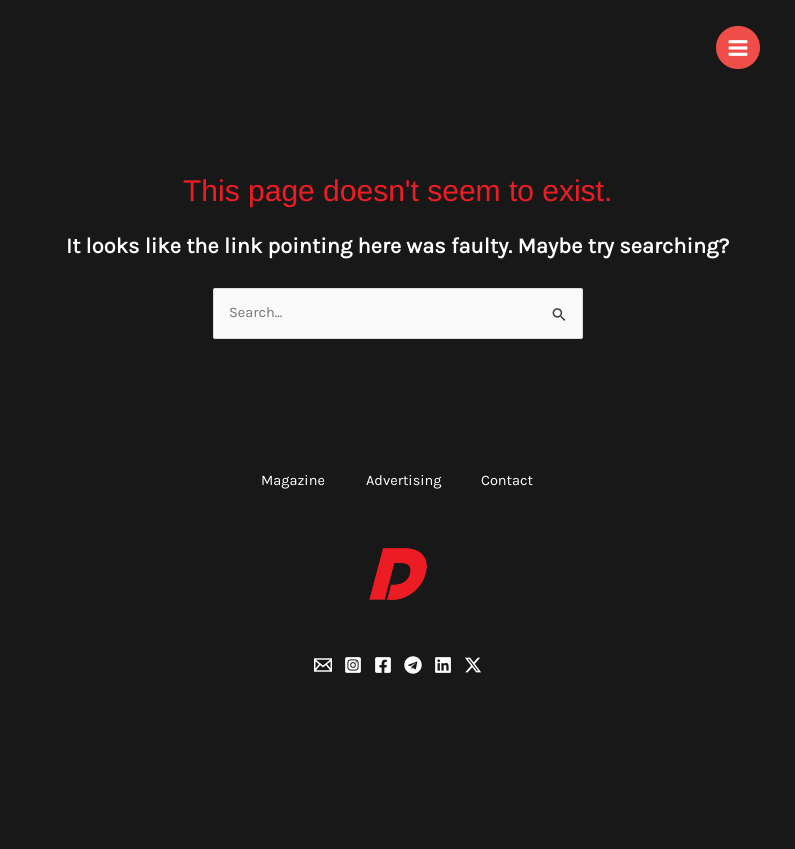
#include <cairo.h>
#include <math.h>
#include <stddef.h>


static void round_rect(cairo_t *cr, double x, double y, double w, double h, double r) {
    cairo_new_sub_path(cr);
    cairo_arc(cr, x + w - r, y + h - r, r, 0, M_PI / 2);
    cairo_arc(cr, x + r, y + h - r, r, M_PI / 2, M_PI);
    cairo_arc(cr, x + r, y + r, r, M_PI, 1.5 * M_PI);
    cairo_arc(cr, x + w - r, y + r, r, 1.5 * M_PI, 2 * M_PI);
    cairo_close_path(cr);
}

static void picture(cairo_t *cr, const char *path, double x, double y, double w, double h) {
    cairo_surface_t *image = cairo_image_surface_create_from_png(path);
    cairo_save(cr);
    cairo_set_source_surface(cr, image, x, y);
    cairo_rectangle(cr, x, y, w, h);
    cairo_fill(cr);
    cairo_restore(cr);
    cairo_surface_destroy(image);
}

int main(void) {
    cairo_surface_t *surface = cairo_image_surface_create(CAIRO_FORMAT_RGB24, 795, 849);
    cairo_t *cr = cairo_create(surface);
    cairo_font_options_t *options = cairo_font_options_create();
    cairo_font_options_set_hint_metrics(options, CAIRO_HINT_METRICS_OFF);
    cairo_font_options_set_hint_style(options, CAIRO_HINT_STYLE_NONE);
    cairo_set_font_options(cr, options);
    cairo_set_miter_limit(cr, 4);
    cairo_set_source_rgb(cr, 0.098, 0.094, 0.094);
    cairo_paint(cr);
    cairo_set_source_rgb(cr, 0.937, 0.302, 0.282);
    round_rect(cr, 716, 26, 44, 43, 21.5);
    cairo_fill(cr);
    picture(cr, "img1.png", 728, 40, 20, 16);
    cairo_select_font_face(cr, "Liberation Sans", CAIRO_FONT_SLANT_NORMAL, CAIRO_FONT_WEIGHT_NORMAL);
    cairo_set_font_size(cr, 30);
    cairo_set_source_rgb(cr, 0.929, 0.11, 0.141);
    cairo_move_to(cr, 183, 201);
    cairo_show_text(cr, "This page doesn't seem to exist.");
    cairo_select_font_face(cr, "Karla", CAIRO_FONT_SLANT_NORMAL, CAIRO_FONT_WEIGHT_BOLD);
    cairo_set_font_size(cr, 21.9);
    cairo_set_source_rgb(cr, 1, 1, 1);
    cairo_move_to(cr, 66, 253);
    cairo_show_text(cr, "It looks like the link pointing here was faulty. Maybe try searching?");
    cairo_set_source_rgb(cr, 0.98, 0.98, 0.98);
    round_rect(cr, 213.5, 288.5, 369, 50, 1.5);
    cairo_fill_preserve(cr);
    cairo_set_source_rgb(cr, 0.867, 0.867, 0.867);
    cairo_set_line_width(cr, 1);
    cairo_stroke(cr);
    cairo_select_font_face(cr, "Karla", CAIRO_FONT_SLANT_NORMAL, CAIRO_FONT_WEIGHT_NORMAL);
    cairo_set_font_size(cr, 14.5);
    cairo_set_source_rgb(cr, 0.459, 0.459, 0.459);
    cairo_move_to(cr, 229, 317);
    cairo_show_text(cr, "Search...");
    picture(cr, "img2.png", 552, 308, 14, 13);
    cairo_set_source_rgb(cr, 1, 1, 1);
    cairo_move_to(cr, 261, 485);
    cairo_show_text(cr, "Magazine");
    cairo_move_to(cr, 366, 485);
    cairo_show_text(cr, "Advertising");
    cairo_move_to(cr, 481, 485);
    cairo_show_text(cr, "Contact");
    picture(cr, "img3.png", 369, 548, 58, 52);
    picture(cr, "img4.png", 314, 658, 18, 14);
    picture(cr, "img5.png", 345, 657, 16, 16);
    picture(cr, "img6.png", 375, 657, 16, 16);
    picture(cr, "img7.png", 404, 656, 18, 18);
    picture(cr, "img8.png", 435, 657, 16, 16);
    picture(cr, "img9.png", 465, 657, 16, 16);
    cairo_surface_write_to_png(surface, "page.png");
    cairo_font_options_destroy(options);
    cairo_destroy(cr);
    cairo_surface_destroy(surface);
    return 0;
}
